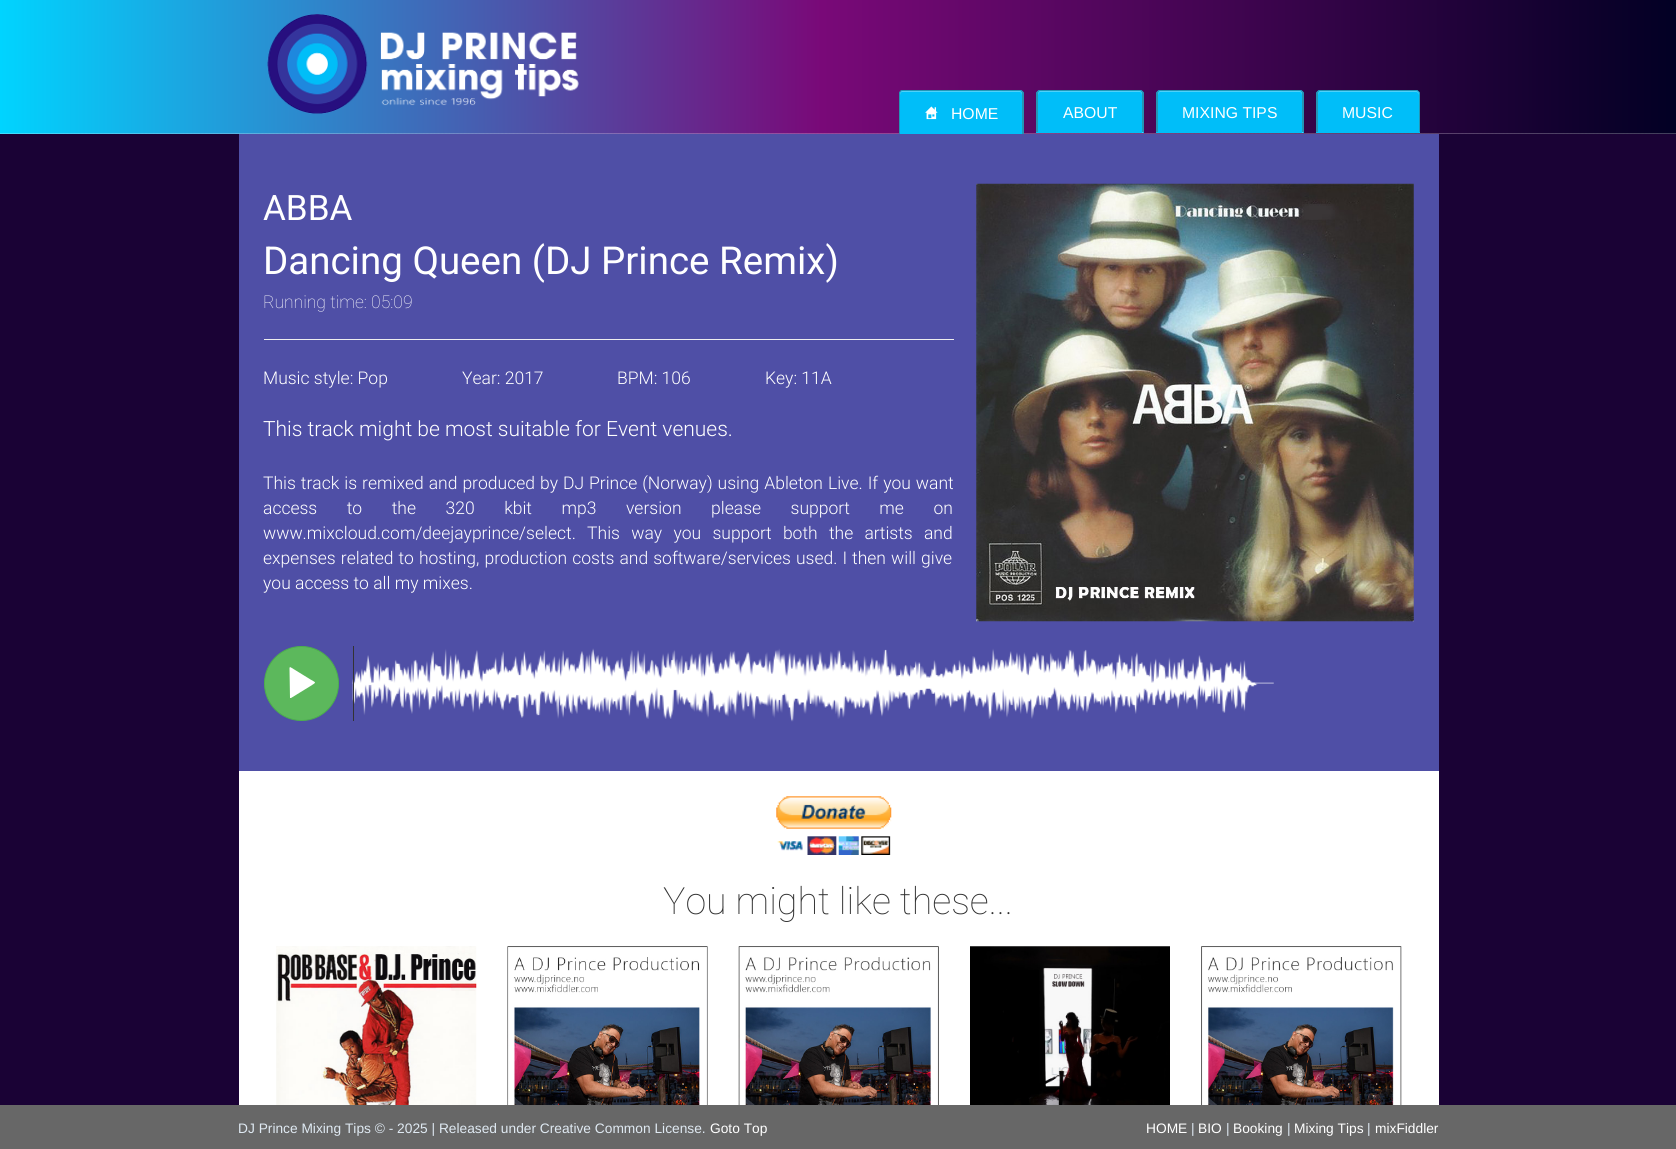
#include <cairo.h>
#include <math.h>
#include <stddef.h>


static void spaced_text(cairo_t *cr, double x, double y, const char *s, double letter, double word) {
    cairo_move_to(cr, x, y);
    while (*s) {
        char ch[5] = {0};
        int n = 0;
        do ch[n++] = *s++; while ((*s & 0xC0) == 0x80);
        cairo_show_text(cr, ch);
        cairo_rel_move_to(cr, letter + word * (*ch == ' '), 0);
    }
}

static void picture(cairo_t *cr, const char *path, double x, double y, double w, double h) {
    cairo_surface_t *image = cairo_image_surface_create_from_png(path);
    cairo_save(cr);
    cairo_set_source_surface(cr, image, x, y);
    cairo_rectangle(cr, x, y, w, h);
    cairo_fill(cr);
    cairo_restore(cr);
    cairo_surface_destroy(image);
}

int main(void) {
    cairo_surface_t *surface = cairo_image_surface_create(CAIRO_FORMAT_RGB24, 1676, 1149);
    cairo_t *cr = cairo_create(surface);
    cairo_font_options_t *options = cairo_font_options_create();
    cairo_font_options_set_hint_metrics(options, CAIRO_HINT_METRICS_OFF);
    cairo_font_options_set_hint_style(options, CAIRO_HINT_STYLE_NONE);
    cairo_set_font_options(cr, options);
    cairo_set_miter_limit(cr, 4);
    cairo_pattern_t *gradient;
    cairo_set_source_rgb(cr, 1, 1, 1);
    cairo_paint(cr);
    gradient = cairo_pattern_create_linear(0, 67, 1676, 67);
    cairo_pattern_add_color_stop_rgba(gradient, 0, 0, 0.831, 1, 1);
    cairo_pattern_add_color_stop_rgba(gradient, 0.49, 0.475, 0.035, 0.471, 1);
    cairo_pattern_add_color_stop_rgba(gradient, 1, 0.008, 0, 0.141, 1);
    cairo_set_source(cr, gradient);
    cairo_pattern_destroy(gradient);
    cairo_rectangle(cr, 0, 0, 1676, 134);
    cairo_fill(cr);
    picture(cr, "img1.png", 267, 14, 312, 100);
    picture(cr, "img3.png", 0, 133, 1676, 1);
    cairo_set_source_rgb(cr, 0, 0.745, 0.973);
    cairo_new_path(cr);
    cairo_move_to(cr, 903, 90);
    cairo_line_to(cr, 1020, 90);
    cairo_curve_to(cr, 1022, 90, 1024, 92, 1024, 94);
    cairo_line_to(cr, 1024, 134);
    cairo_line_to(cr, 899, 134);
    cairo_line_to(cr, 899, 94);
    cairo_curve_to(cr, 899, 92, 901, 90, 903, 90);
    cairo_close_path(cr);
    cairo_fill(cr);
    cairo_set_source_rgb(cr, 0.302, 0.824, 0.98);
    cairo_new_path(cr);
    cairo_move_to(cr, 902, 92);
    cairo_line_to(cr, 1020, 92);
    cairo_curve_to(cr, 1021, 92, 1022, 94, 1022, 95);
    cairo_line_to(cr, 1022, 134);
    cairo_line_to(cr, 1023, 134);
    cairo_line_to(cr, 1023, 94);
    cairo_curve_to(cr, 1023, 92, 1022, 91, 1020, 91);
    cairo_line_to(cr, 902, 91);
    cairo_curve_to(cr, 901, 91, 900, 92, 900, 94);
    cairo_line_to(cr, 900, 95);
    cairo_curve_to(cr, 900, 94, 901, 92, 902, 92);
    cairo_close_path(cr);
    cairo_fill(cr);
    cairo_set_source_rgb(cr, 0.141, 0.584, 0.706);
    cairo_set_fill_rule(cr, CAIRO_FILL_RULE_EVEN_ODD);
    cairo_new_path(cr);
    cairo_move_to(cr, 902, 90);
    cairo_line_to(cr, 1020, 90);
    cairo_curve_to(cr, 1022, 90, 1024, 92, 1024, 94);
    cairo_line_to(cr, 1024, 134);
    cairo_line_to(cr, 899, 134);
    cairo_line_to(cr, 899, 94);
    cairo_curve_to(cr, 899, 92, 900, 90, 902, 90);
    cairo_close_path(cr);
    cairo_move_to(cr, 902, 91);
    cairo_line_to(cr, 1020, 91);
    cairo_curve_to(cr, 1021, 91, 1022, 92, 1022, 94);
    cairo_line_to(cr, 1022, 134);
    cairo_line_to(cr, 900, 134);
    cairo_line_to(cr, 900, 94);
    cairo_curve_to(cr, 900, 92, 901, 91, 902, 91);
    cairo_close_path(cr);
    cairo_fill(cr);
    picture(cr, "img2.png", 925, 106, 13, 14);
    cairo_select_font_face(cr, "Liberation Sans", CAIRO_FONT_SLANT_NORMAL, CAIRO_FONT_WEIGHT_NORMAL);
    cairo_set_font_size(cr, 15.75);
    cairo_set_source_rgb(cr, 1, 1, 1);
    cairo_move_to(cr, 951, 119);
    cairo_show_text(cr, "HOME");
    cairo_set_source_rgb(cr, 0, 0.745, 0.973);
    cairo_new_path(cr);
    cairo_move_to(cr, 1040, 90);
    cairo_line_to(cr, 1140, 90);
    cairo_curve_to(cr, 1142, 90, 1144, 92, 1144, 94);
    cairo_line_to(cr, 1144, 133);
    cairo_line_to(cr, 1036, 133);
    cairo_line_to(cr, 1036, 94);
    cairo_curve_to(cr, 1036, 92, 1038, 90, 1040, 90);
    cairo_close_path(cr);
    cairo_fill(cr);
    cairo_set_source_rgb(cr, 0.302, 0.824, 0.98);
    cairo_set_fill_rule(cr, CAIRO_FILL_RULE_WINDING);
    cairo_new_path(cr);
    cairo_move_to(cr, 1040, 92);
    cairo_line_to(cr, 1140, 92);
    cairo_curve_to(cr, 1141, 92, 1142, 94, 1142, 95);
    cairo_line_to(cr, 1142, 133);
    cairo_line_to(cr, 1143, 133);
    cairo_line_to(cr, 1143, 94);
    cairo_curve_to(cr, 1143, 92, 1142, 91, 1140, 91);
    cairo_line_to(cr, 1040, 91);
    cairo_curve_to(cr, 1039, 91, 1038, 92, 1038, 94);
    cairo_line_to(cr, 1038, 95);
    cairo_curve_to(cr, 1038, 94, 1039, 92, 1040, 92);
    cairo_close_path(cr);
    cairo_fill(cr);
    cairo_set_source_rgb(cr, 0.141, 0.584, 0.706);
    cairo_set_fill_rule(cr, CAIRO_FILL_RULE_EVEN_ODD);
    cairo_new_path(cr);
    cairo_move_to(cr, 1040, 90);
    cairo_line_to(cr, 1140, 90);
    cairo_curve_to(cr, 1142, 90, 1144, 92, 1144, 94);
    cairo_line_to(cr, 1144, 132);
    cairo_line_to(cr, 1036, 132);
    cairo_line_to(cr, 1036, 94);
    cairo_curve_to(cr, 1036, 92, 1038, 90, 1040, 90);
    cairo_close_path(cr);
    cairo_move_to(cr, 1040, 91);
    cairo_line_to(cr, 1140, 91);
    cairo_curve_to(cr, 1141, 91, 1142, 92, 1142, 94);
    cairo_line_to(cr, 1142, 132);
    cairo_line_to(cr, 1038, 132);
    cairo_line_to(cr, 1038, 94);
    cairo_curve_to(cr, 1038, 92, 1039, 91, 1040, 91);
    cairo_close_path(cr);
    cairo_fill(cr);
    cairo_set_source_rgb(cr, 1, 1, 1);
    cairo_move_to(cr, 1063, 118);
    cairo_show_text(cr, "ABOUT");
    cairo_set_source_rgb(cr, 0, 0.745, 0.973);
    cairo_new_path(cr);
    cairo_move_to(cr, 1160, 90);
    cairo_line_to(cr, 1300, 90);
    cairo_curve_to(cr, 1302, 90, 1304, 92, 1304, 94);
    cairo_line_to(cr, 1304, 133);
    cairo_line_to(cr, 1156, 133);
    cairo_line_to(cr, 1156, 94);
    cairo_curve_to(cr, 1156, 92, 1158, 90, 1160, 90);
    cairo_close_path(cr);
    cairo_fill(cr);
    cairo_set_source_rgb(cr, 0.302, 0.824, 0.98);
    cairo_set_fill_rule(cr, CAIRO_FILL_RULE_WINDING);
    cairo_new_path(cr);
    cairo_move_to(cr, 1160, 92);
    cairo_line_to(cr, 1300, 92);
    cairo_curve_to(cr, 1301, 92, 1302, 94, 1302, 95);
    cairo_line_to(cr, 1302, 133);
    cairo_line_to(cr, 1303, 133);
    cairo_line_to(cr, 1303, 94);
    cairo_curve_to(cr, 1303, 92, 1302, 91, 1300, 91);
    cairo_line_to(cr, 1160, 91);
    cairo_curve_to(cr, 1159, 91, 1158, 92, 1158, 94);
    cairo_line_to(cr, 1158, 95);
    cairo_curve_to(cr, 1158, 94, 1159, 92, 1160, 92);
    cairo_close_path(cr);
    cairo_fill(cr);
    cairo_set_source_rgb(cr, 0.141, 0.584, 0.706);
    cairo_set_fill_rule(cr, CAIRO_FILL_RULE_EVEN_ODD);
    cairo_new_path(cr);
    cairo_move_to(cr, 1160, 90);
    cairo_line_to(cr, 1300, 90);
    cairo_curve_to(cr, 1302, 90, 1304, 92, 1304, 94);
    cairo_line_to(cr, 1304, 132);
    cairo_line_to(cr, 1156, 132);
    cairo_line_to(cr, 1156, 94);
    cairo_curve_to(cr, 1156, 92, 1158, 90, 1160, 90);
    cairo_close_path(cr);
    cairo_move_to(cr, 1160, 91);
    cairo_line_to(cr, 1300, 91);
    cairo_curve_to(cr, 1301, 91, 1302, 92, 1302, 94);
    cairo_line_to(cr, 1302, 132);
    cairo_line_to(cr, 1158, 132);
    cairo_line_to(cr, 1158, 94);
    cairo_curve_to(cr, 1158, 92, 1159, 91, 1160, 91);
    cairo_close_path(cr);
    cairo_fill(cr);
    cairo_set_source_rgb(cr, 1, 1, 1);
    cairo_move_to(cr, 1182, 118);
    cairo_show_text(cr, "MIXING TIPS");
    cairo_set_source_rgb(cr, 0, 0.745, 0.973);
    cairo_new_path(cr);
    cairo_move_to(cr, 1320, 90);
    cairo_line_to(cr, 1416, 90);
    cairo_curve_to(cr, 1418, 90, 1420, 92, 1420, 94);
    cairo_line_to(cr, 1420, 133);
    cairo_line_to(cr, 1316, 133);
    cairo_line_to(cr, 1316, 94);
    cairo_curve_to(cr, 1316, 92, 1318, 90, 1320, 90);
    cairo_close_path(cr);
    cairo_fill(cr);
    cairo_set_source_rgb(cr, 0.302, 0.824, 0.98);
    cairo_set_fill_rule(cr, CAIRO_FILL_RULE_WINDING);
    cairo_new_path(cr);
    cairo_move_to(cr, 1320, 92);
    cairo_line_to(cr, 1416, 92);
    cairo_curve_to(cr, 1418, 92, 1419, 94, 1419, 95);
    cairo_line_to(cr, 1419, 94);
    cairo_curve_to(cr, 1419, 92, 1418, 91, 1416, 91);
    cairo_line_to(cr, 1320, 91);
    cairo_curve_to(cr, 1319, 91, 1318, 92, 1318, 94);
    cairo_line_to(cr, 1318, 95);
    cairo_curve_to(cr, 1318, 94, 1319, 92, 1320, 92);
    cairo_close_path(cr);
    cairo_fill(cr);
    cairo_set_source_rgb(cr, 0.141, 0.584, 0.706);
    cairo_set_fill_rule(cr, CAIRO_FILL_RULE_EVEN_ODD);
    cairo_new_path(cr);
    cairo_move_to(cr, 1320, 90);
    cairo_line_to(cr, 1416, 90);
    cairo_curve_to(cr, 1418, 90, 1420, 92, 1420, 94);
    cairo_line_to(cr, 1420, 132);
    cairo_line_to(cr, 1316, 132);
    cairo_line_to(cr, 1316, 94);
    cairo_curve_to(cr, 1316, 92, 1318, 90, 1320, 90);
    cairo_close_path(cr);
    cairo_move_to(cr, 1320, 91);
    cairo_line_to(cr, 1416, 91);
    cairo_curve_to(cr, 1418, 91, 1419, 92, 1419, 94);
    cairo_line_to(cr, 1419, 132);
    cairo_line_to(cr, 1318, 132);
    cairo_line_to(cr, 1318, 94);
    cairo_curve_to(cr, 1318, 92, 1319, 91, 1320, 91);
    cairo_close_path(cr);
    cairo_fill(cr);
    cairo_set_source_rgb(cr, 1, 1, 1);
    cairo_move_to(cr, 1342, 118);
    cairo_show_text(cr, "MUSIC");
    cairo_set_source_rgb(cr, 0.102, 0.008, 0.208);
    cairo_rectangle(cr, 0, 134, 1676, 971);
    cairo_fill(cr);
    cairo_set_source_rgb(cr, 1, 1, 1);
    cairo_rectangle(cr, 239, 771, 1200, 334);
    cairo_fill(cr);
    cairo_set_source_rgb(cr, 0.31, 0.31, 0.651);
    cairo_rectangle(cr, 239, 134, 1200, 637);
    cairo_fill(cr);
    cairo_select_font_face(cr, "Roboto", CAIRO_FONT_SLANT_NORMAL, CAIRO_FONT_WEIGHT_NORMAL);
    cairo_set_font_size(cr, 35);
    cairo_set_source_rgb(cr, 1, 1, 1);
    cairo_move_to(cr, 263, 220);
    cairo_show_text(cr, "ABBA");
    picture(cr, "img4.png", 976, 183, 438, 439);
    cairo_set_font_size(cr, 38.5);
    cairo_move_to(cr, 263, 274);
    cairo_show_text(cr, "Dancing Queen (DJ Prince Remix)");
    cairo_select_font_face(cr, "Roboto Thin", CAIRO_FONT_SLANT_NORMAL, CAIRO_FONT_WEIGHT_NORMAL);
    cairo_set_font_size(cr, 17.5);
    cairo_move_to(cr, 263, 308);
    cairo_show_text(cr, "Running time: 05:09");
    cairo_set_source_rgb(cr, 0.933, 0.933, 0.933);
    cairo_rectangle(cr, 264, 339, 690, 1);
    cairo_fill(cr);
    cairo_select_font_face(cr, "Roboto Light", CAIRO_FONT_SLANT_NORMAL, CAIRO_FONT_WEIGHT_NORMAL);
    cairo_set_source_rgb(cr, 1, 1, 1);
    cairo_move_to(cr, 263, 384);
    cairo_show_text(cr, "Music style: Pop");
    cairo_move_to(cr, 462, 384);
    cairo_show_text(cr, "Year: 2017");
    cairo_move_to(cr, 617, 384);
    cairo_show_text(cr, "BPM: 106");
    cairo_move_to(cr, 765, 384);
    cairo_show_text(cr, "Key: 11A");
    cairo_set_font_size(cr, 21);
    cairo_move_to(cr, 263, 436);
    cairo_show_text(cr, "This track might be most suitable for Event venues.");
    cairo_set_font_size(cr, 17.5);
    spaced_text(cr, 263, 489, "This track is remixed and produced by DJ Prince (Norway) using Ableton Live. If you want", 0, 0.7);
    spaced_text(cr, 263, 514, "access to the 320 kbit mp3 version please support me on", 0, 25.25);
    spaced_text(cr, 263, 539, "www.mixcloud.com/deejayprince/select. This way you support both the artists and", 0, 7);
    spaced_text(cr, 263, 564, "expenses related to hosting, production costs and software/services used. I then will give", 0, 0.75);
    cairo_move_to(cr, 263, 589);
    cairo_show_text(cr, "you access to all my mixes.");
    cairo_set_source_rgb(cr, 0.361, 0.722, 0.361);
    cairo_new_path(cr);
    cairo_arc(cr, 301.5, 683.5, 37, 0, 2 * M_PI);
    cairo_fill_preserve(cr);
    cairo_set_source_rgb(cr, 0.298, 0.682, 0.298);
    cairo_set_line_width(cr, 1);
    cairo_stroke(cr);
    cairo_set_source_rgb(cr, 1, 1, 1);
    cairo_set_fill_rule(cr, CAIRO_FILL_RULE_WINDING);
    cairo_new_path(cr);
    cairo_move_to(cr, 291, 667.5);
    cairo_line_to(cr, 310.5, 679.5);
    cairo_curve_to(cr, 316.5, 683, 316.5, 682, 310.5, 686);
    cairo_line_to(cr, 291, 698);
    cairo_line_to(cr, 290, 698);
    cairo_line_to(cr, 289.5, 668);
    cairo_curve_to(cr, 289.5, 667, 290.5, 667, 291, 667.5);
    cairo_close_path(cr);
    cairo_fill(cr);
    picture(cr, "img5.png", 352, 648, 922, 74);
    cairo_set_source_rgb(cr, 0.2, 0.2, 0.2);
    cairo_rectangle(cr, 353, 646, 1, 75);
    cairo_fill(cr);
    picture(cr, "img6.png", 776, 796, 116, 59);
    cairo_select_font_face(cr, "Roboto Thin", CAIRO_FONT_SLANT_NORMAL, CAIRO_FONT_WEIGHT_NORMAL);
    cairo_set_font_size(cr, 37.5);
    cairo_move_to(cr, 663, 914);
    cairo_show_text(cr, "You might like these...");
    picture(cr, "img7.png", 276, 946, 201, 159);
    picture(cr, "img8.png", 507, 946, 201, 159);
    picture(cr, "img9.png", 738, 946, 201, 159);
    picture(cr, "img10.png", 970, 946, 200, 159);
    picture(cr, "img11.png", 1201, 946, 201, 159);
    cairo_set_source_rgb(cr, 0.404, 0.404, 0.404);
    cairo_rectangle(cr, 0, 1105, 1676, 44);
    cairo_fill(cr);
    cairo_select_font_face(cr, "Liberation Sans", CAIRO_FONT_SLANT_NORMAL, CAIRO_FONT_WEIGHT_NORMAL);
    cairo_set_font_size(cr, 13.75);
    cairo_set_source_rgb(cr, 0.875, 0.914, 0.949);
    cairo_move_to(cr, 238, 1133);
    cairo_show_text(cr, "DJ Prince Mixing Tips © - 2025 | Released under Creative Common License.");
    cairo_set_source_rgb(cr, 1, 1, 1);
    cairo_move_to(cr, 710, 1133);
    cairo_show_text(cr, "Goto Top");
    cairo_move_to(cr, 1146, 1133);
    cairo_show_text(cr, "HOME");
    cairo_set_source_rgb(cr, 0.875, 0.914, 0.949);
    cairo_move_to(cr, 1191, 1133);
    cairo_show_text(cr, "|");
    cairo_set_source_rgb(cr, 1, 1, 1);
    cairo_move_to(cr, 1198, 1133);
    cairo_show_text(cr, "BIO");
    cairo_set_source_rgb(cr, 0.875, 0.914, 0.949);
    cairo_move_to(cr, 1226, 1133);
    cairo_show_text(cr, "|");
    cairo_set_source_rgb(cr, 1, 1, 1);
    cairo_move_to(cr, 1233, 1133);
    cairo_show_text(cr, "Booking");
    cairo_set_source_rgb(cr, 0.875, 0.914, 0.949);
    cairo_move_to(cr, 1287, 1133);
    cairo_show_text(cr, "|");
    cairo_set_source_rgb(cr, 1, 1, 1);
    cairo_move_to(cr, 1294, 1133);
    cairo_show_text(cr, "Mixing Tips");
    cairo_set_source_rgb(cr, 0.875, 0.914, 0.949);
    cairo_move_to(cr, 1367, 1133);
    cairo_show_text(cr, "|");
    cairo_set_source_rgb(cr, 1, 1, 1);
    cairo_move_to(cr, 1375, 1133);
    cairo_show_text(cr, "mixFiddler");
    cairo_surface_write_to_png(surface, "page.png");
    cairo_font_options_destroy(options);
    cairo_destroy(cr);
    cairo_surface_destroy(surface);
    return 0;
}
